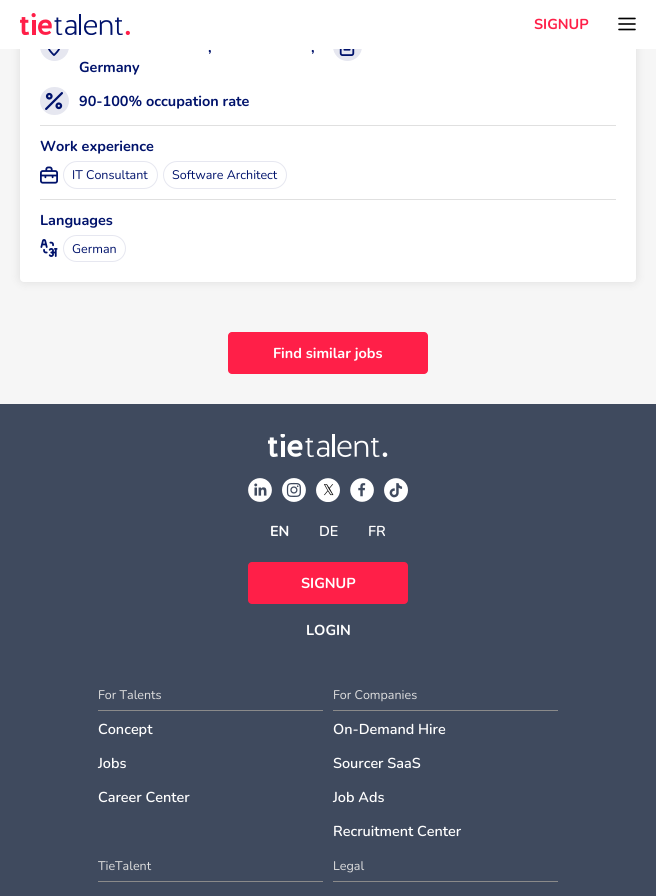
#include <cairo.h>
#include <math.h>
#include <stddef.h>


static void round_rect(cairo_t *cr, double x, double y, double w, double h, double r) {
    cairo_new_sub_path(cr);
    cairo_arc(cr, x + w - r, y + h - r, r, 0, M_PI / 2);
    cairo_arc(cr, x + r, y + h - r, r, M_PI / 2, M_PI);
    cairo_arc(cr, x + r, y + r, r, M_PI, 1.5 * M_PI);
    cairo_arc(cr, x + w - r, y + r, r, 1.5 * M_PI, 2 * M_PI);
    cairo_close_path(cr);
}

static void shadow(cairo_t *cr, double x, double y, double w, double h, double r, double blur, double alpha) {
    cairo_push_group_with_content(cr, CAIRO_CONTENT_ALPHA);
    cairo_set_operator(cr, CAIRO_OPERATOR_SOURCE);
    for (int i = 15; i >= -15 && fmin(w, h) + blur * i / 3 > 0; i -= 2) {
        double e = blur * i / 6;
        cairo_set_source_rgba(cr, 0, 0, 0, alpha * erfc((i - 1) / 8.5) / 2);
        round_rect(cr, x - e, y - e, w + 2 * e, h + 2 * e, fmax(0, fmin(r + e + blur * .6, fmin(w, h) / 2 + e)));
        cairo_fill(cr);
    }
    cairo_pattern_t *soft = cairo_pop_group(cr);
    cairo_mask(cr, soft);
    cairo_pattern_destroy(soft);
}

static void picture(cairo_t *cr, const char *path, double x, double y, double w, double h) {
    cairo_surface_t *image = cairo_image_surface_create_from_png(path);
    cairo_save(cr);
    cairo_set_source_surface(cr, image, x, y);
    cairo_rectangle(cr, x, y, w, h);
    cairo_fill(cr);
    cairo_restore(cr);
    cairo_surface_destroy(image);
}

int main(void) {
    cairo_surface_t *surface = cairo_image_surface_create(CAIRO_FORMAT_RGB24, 656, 896);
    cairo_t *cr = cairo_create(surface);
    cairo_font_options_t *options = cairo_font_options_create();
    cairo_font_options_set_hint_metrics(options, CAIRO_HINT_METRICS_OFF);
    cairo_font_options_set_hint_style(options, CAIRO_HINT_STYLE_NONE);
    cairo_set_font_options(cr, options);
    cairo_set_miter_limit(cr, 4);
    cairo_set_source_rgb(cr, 0.247, 0.29, 0.369);
    cairo_paint(cr);
    cairo_set_source_rgb(cr, 0.961, 0.961, 0.961);
    cairo_rectangle(cr, 0, 49, 656, 355);
    cairo_fill(cr);
    cairo_set_source_rgb(cr, 0, 0, 0);
    shadow(cr, 20, -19, 616, 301, 4, 5, 0.1);
    cairo_set_source_rgb(cr, 1, 1, 1);
    round_rect(cr, 20, -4, 616, 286, 4);
    cairo_fill(cr);
    cairo_set_source_rgb(cr, 0.902, 0.906, 0.941);
    cairo_arc(cr, 54.5, 46.5, 14.5, 0, 2 * M_PI);
    cairo_fill(cr);
    cairo_arc(cr, 347.5, 46.5, 14.5, 0, 2 * M_PI);
    cairo_fill(cr);
    cairo_set_source_rgb(cr, 1, 1, 1);
    cairo_rectangle(cr, 0, 0, 656, 49);
    cairo_fill(cr);
    picture(cr, "img1.png", 20, 13, 110, 22);
    cairo_select_font_face(cr, "Nunito", CAIRO_FONT_SLANT_NORMAL, CAIRO_FONT_WEIGHT_BOLD);
    cairo_set_font_size(cr, 14.4);
    cairo_set_source_rgb(cr, 1, 0.122, 0.282);
    cairo_move_to(cr, 534, 29);
    cairo_show_text(cr, "SIGNUP");
    cairo_new_path(cr);
    cairo_move_to(cr, 619, 29.5);
    cairo_line_to(cr, 635, 29.5);
    cairo_move_to(cr, 619, 24);
    cairo_line_to(cr, 635, 24);
    cairo_move_to(cr, 619, 18.5);
    cairo_line_to(cr, 635, 18.5);
    cairo_set_source_rgb(cr, 0, 0, 0);
    cairo_set_line_width(cr, 1.6);
    cairo_set_line_cap(cr, CAIRO_LINE_CAP_ROUND);
    cairo_set_line_join(cr, CAIRO_LINE_JOIN_ROUND);
    cairo_stroke(cr);
    picture(cr, "img2.png", 48, 49, 12, 7);
    cairo_set_source_rgb(cr, 0, 0.071, 0.42);
    cairo_move_to(cr, 208, 52);
    cairo_show_text(cr, ",");
    cairo_move_to(cr, 311, 52);
    cairo_show_text(cr, ",");
    cairo_move_to(cr, 79, 72);
    cairo_show_text(cr, "Germany");
    picture(cr, "img3.png", 339, 49, 16, 7);
    cairo_set_source_rgb(cr, 0.902, 0.906, 0.941);
    round_rect(cr, 40, 87, 29, 28, 14);
    cairo_fill(cr);
    picture(cr, "img4.png", 45, 92, 18, 18);
    cairo_set_source_rgb(cr, 0, 0.071, 0.42);
    cairo_move_to(cr, 79, 106);
    cairo_show_text(cr, "90-100% occupation rate");
    cairo_set_source_rgb(cr, 0.878, 0.878, 0.878);
    cairo_rectangle(cr, 40, 125, 576, 1);
    cairo_fill(cr);
    cairo_set_source_rgb(cr, 0, 0.071, 0.42);
    cairo_move_to(cr, 40, 151);
    cairo_show_text(cr, "Work experience");
    picture(cr, "img5.png", 40, 166, 18, 18);
    round_rect(cr, 63.5, 161.5, 94, 27, 13.5);
    cairo_set_source_rgb(cr, 0.902, 0.906, 0.941);
    cairo_set_line_width(cr, 1);
    cairo_set_line_cap(cr, CAIRO_LINE_CAP_BUTT);
    cairo_set_line_join(cr, CAIRO_LINE_JOIN_MITER);
    cairo_stroke(cr);
    cairo_select_font_face(cr, "Nunito", CAIRO_FONT_SLANT_NORMAL, CAIRO_FONT_WEIGHT_NORMAL);
    cairo_set_font_size(cr, 12.5);
    cairo_set_source_rgb(cr, 0, 0.071, 0.42);
    cairo_move_to(cr, 72, 179);
    cairo_show_text(cr, "IT Consultant");
    round_rect(cr, 163.5, 161.5, 123, 27, 13.5);
    cairo_set_source_rgb(cr, 0.902, 0.906, 0.941);
    cairo_stroke(cr);
    cairo_set_source_rgb(cr, 0, 0.071, 0.42);
    cairo_move_to(cr, 172, 179);
    cairo_show_text(cr, "Software Architect");
    cairo_set_source_rgb(cr, 0.878, 0.878, 0.878);
    cairo_rectangle(cr, 40, 199, 576, 1);
    cairo_fill(cr);
    cairo_select_font_face(cr, "Nunito", CAIRO_FONT_SLANT_NORMAL, CAIRO_FONT_WEIGHT_BOLD);
    cairo_set_font_size(cr, 14.4);
    cairo_set_source_rgb(cr, 0, 0.071, 0.42);
    cairo_move_to(cr, 40, 225);
    cairo_show_text(cr, "Languages");
    picture(cr, "img6.png", 40, 239, 18, 18);
    round_rect(cr, 63.5, 235.5, 62, 26, 13);
    cairo_set_source_rgb(cr, 0.902, 0.906, 0.941);
    cairo_stroke(cr);
    cairo_select_font_face(cr, "Nunito", CAIRO_FONT_SLANT_NORMAL, CAIRO_FONT_WEIGHT_NORMAL);
    cairo_set_font_size(cr, 12.5);
    cairo_set_source_rgb(cr, 0, 0.071, 0.42);
    cairo_move_to(cr, 72, 253);
    cairo_show_text(cr, "German");
    cairo_set_source_rgb(cr, 1, 0.122, 0.282);
    round_rect(cr, 228, 332, 200, 42, 4);
    cairo_fill(cr);
    cairo_select_font_face(cr, "Nunito", CAIRO_FONT_SLANT_NORMAL, CAIRO_FONT_WEIGHT_BOLD);
    cairo_set_font_size(cr, 14.4);
    cairo_set_source_rgb(cr, 1, 1, 1);
    cairo_move_to(cr, 273, 358);
    cairo_show_text(cr, "Find similar jobs");
    picture(cr, "img7.png", 268, 434, 120, 23);
    picture(cr, "img8.png", 248, 478, 24, 24);
    picture(cr, "img9.png", 282, 478, 24, 24);
    picture(cr, "img10.png", 316, 478, 24, 24);
    picture(cr, "img11.png", 350, 478, 24, 24);
    picture(cr, "img12.png", 384, 478, 24, 24);
    cairo_move_to(cr, 270, 536);
    cairo_show_text(cr, "EN");
    cairo_select_font_face(cr, "Nunito SemiBold", CAIRO_FONT_SLANT_NORMAL, CAIRO_FONT_WEIGHT_NORMAL);
    cairo_move_to(cr, 319, 536);
    cairo_show_text(cr, "DE");
    cairo_move_to(cr, 368, 536);
    cairo_show_text(cr, "FR");
    cairo_set_source_rgb(cr, 1, 0.122, 0.282);
    round_rect(cr, 248, 562, 160, 42, 4);
    cairo_fill(cr);
    cairo_select_font_face(cr, "Nunito", CAIRO_FONT_SLANT_NORMAL, CAIRO_FONT_WEIGHT_BOLD);
    cairo_set_source_rgb(cr, 1, 1, 1);
    cairo_move_to(cr, 301, 588);
    cairo_show_text(cr, "SIGNUP");
    cairo_move_to(cr, 306, 635);
    cairo_show_text(cr, "LOGIN");
    cairo_select_font_face(cr, "Nunito", CAIRO_FONT_SLANT_NORMAL, CAIRO_FONT_WEIGHT_NORMAL);
    cairo_set_font_size(cr, 12.5);
    cairo_set_source_rgb(cr, 0.878, 0.878, 0.878);
    cairo_move_to(cr, 98, 699);
    cairo_show_text(cr, "For Talents");
    cairo_set_source_rgb(cr, 0.541, 0.541, 0.541);
    cairo_rectangle(cr, 98, 710, 225, 1);
    cairo_fill(cr);
    cairo_select_font_face(cr, "Nunito SemiBold", CAIRO_FONT_SLANT_NORMAL, CAIRO_FONT_WEIGHT_NORMAL);
    cairo_set_font_size(cr, 14.4);
    cairo_set_source_rgb(cr, 1, 1, 1);
    cairo_move_to(cr, 98, 734);
    cairo_show_text(cr, "Concept");
    cairo_move_to(cr, 98, 768);
    cairo_show_text(cr, "Jobs");
    cairo_move_to(cr, 98, 802);
    cairo_show_text(cr, "Career Center");
    cairo_select_font_face(cr, "Nunito", CAIRO_FONT_SLANT_NORMAL, CAIRO_FONT_WEIGHT_NORMAL);
    cairo_set_font_size(cr, 12.5);
    cairo_set_source_rgb(cr, 0.878, 0.878, 0.878);
    cairo_move_to(cr, 333, 699);
    cairo_show_text(cr, "For Companies");
    cairo_set_source_rgb(cr, 0.541, 0.541, 0.541);
    cairo_rectangle(cr, 333, 710, 225, 1);
    cairo_fill(cr);
    cairo_select_font_face(cr, "Nunito SemiBold", CAIRO_FONT_SLANT_NORMAL, CAIRO_FONT_WEIGHT_NORMAL);
    cairo_set_font_size(cr, 14.4);
    cairo_set_source_rgb(cr, 1, 1, 1);
    cairo_move_to(cr, 333, 734);
    cairo_show_text(cr, "On-Demand Hire");
    cairo_move_to(cr, 333, 768);
    cairo_show_text(cr, "Sourcer SaaS");
    cairo_move_to(cr, 333, 802);
    cairo_show_text(cr, "Job Ads");
    cairo_move_to(cr, 333, 836);
    cairo_show_text(cr, "Recruitment Center");
    cairo_select_font_face(cr, "Nunito", CAIRO_FONT_SLANT_NORMAL, CAIRO_FONT_WEIGHT_NORMAL);
    cairo_set_font_size(cr, 12.5);
    cairo_set_source_rgb(cr, 0.878, 0.878, 0.878);
    cairo_move_to(cr, 98, 870);
    cairo_show_text(cr, "TieTalent");
    cairo_set_source_rgb(cr, 0.541, 0.541, 0.541);
    cairo_rectangle(cr, 98, 881, 225, 1);
    cairo_fill(cr);
    cairo_set_source_rgb(cr, 0.878, 0.878, 0.878);
    cairo_move_to(cr, 333, 870);
    cairo_show_text(cr, "Legal");
    cairo_set_source_rgb(cr, 0.541, 0.541, 0.541);
    cairo_rectangle(cr, 333, 881, 225, 1);
    cairo_fill(cr);
    cairo_surface_write_to_png(surface, "page.png");
    cairo_font_options_destroy(options);
    cairo_destroy(cr);
    cairo_surface_destroy(surface);
    return 0;
}
